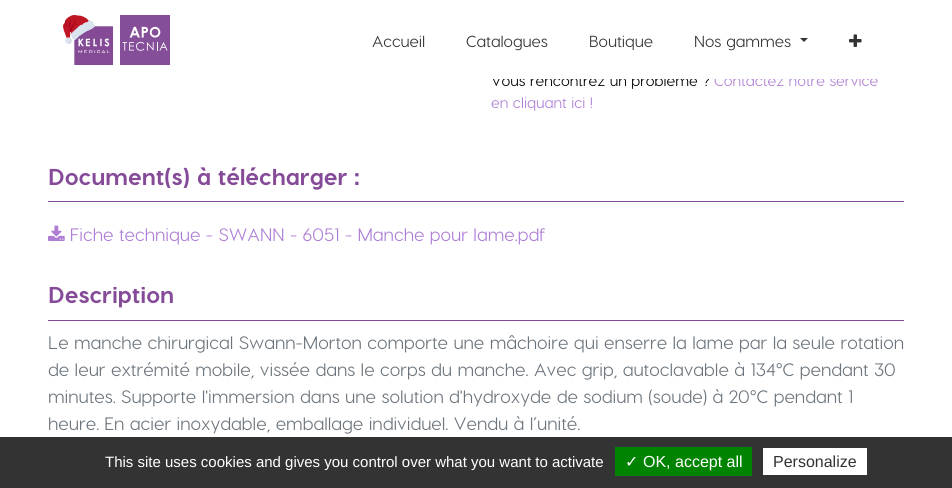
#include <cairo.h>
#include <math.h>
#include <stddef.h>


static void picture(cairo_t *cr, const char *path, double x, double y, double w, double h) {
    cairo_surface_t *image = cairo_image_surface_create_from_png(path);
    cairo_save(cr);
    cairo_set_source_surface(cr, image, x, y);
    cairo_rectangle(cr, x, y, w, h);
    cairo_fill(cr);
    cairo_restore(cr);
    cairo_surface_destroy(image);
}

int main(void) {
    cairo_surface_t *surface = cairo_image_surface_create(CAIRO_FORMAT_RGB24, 952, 488);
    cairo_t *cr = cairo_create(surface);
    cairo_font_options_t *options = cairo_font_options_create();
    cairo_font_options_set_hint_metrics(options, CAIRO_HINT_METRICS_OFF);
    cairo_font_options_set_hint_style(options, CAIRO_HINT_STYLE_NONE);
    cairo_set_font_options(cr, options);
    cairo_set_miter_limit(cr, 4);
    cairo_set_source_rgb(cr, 1, 1, 1);
    cairo_paint(cr);
    cairo_select_font_face(cr, "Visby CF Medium", CAIRO_FONT_SLANT_NORMAL, CAIRO_FONT_WEIGHT_NORMAL);
    cairo_set_font_size(cr, 15);
    cairo_set_source_rgb(cr, 0, 0, 0);
    cairo_move_to(cr, 491, 86);
    cairo_show_text(cr, "Vous rencontrez un problème ?");
    cairo_set_source_rgb(cr, 0.682, 0.494, 0.835);
    cairo_move_to(cr, 714, 86);
    cairo_show_text(cr, "Contactez notre service");
    cairo_set_source_rgb(cr, 1, 1, 1);
    cairo_rectangle(cr, 491, 74, 386, 5);
    cairo_fill(cr);
    picture(cr, "img1.png", 63, 15, 50, 50);
    picture(cr, "img2.png", 120, 15, 50, 50);
    cairo_set_font_size(cr, 16);
    cairo_set_source_rgb(cr, 0.2, 0.2, 0.2);
    cairo_move_to(cr, 372, 47);
    cairo_show_text(cr, "Accueil");
    cairo_move_to(cr, 466, 47);
    cairo_show_text(cr, "Catalogues");
    cairo_move_to(cr, 589, 47);
    cairo_show_text(cr, "Boutique");
    cairo_move_to(cr, 694, 47);
    cairo_show_text(cr, "Nos gammes");
    cairo_new_path(cr);
    cairo_move_to(cr, 800, 38);
    cairo_line_to(cr, 808, 38);
    cairo_line_to(cr, 804, 42);
    cairo_close_path(cr);
    cairo_fill(cr);
    picture(cr, "img3.png", 849, 34, 13, 13);
    cairo_set_font_size(cr, 15);
    cairo_set_source_rgb(cr, 0.682, 0.494, 0.835);
    cairo_move_to(cr, 491, 108);
    cairo_show_text(cr, "en cliquant ici !");
    cairo_select_font_face(cr, "Visby CF ExtraBold", CAIRO_FONT_SLANT_NORMAL, CAIRO_FONT_WEIGHT_NORMAL);
    cairo_set_font_size(cr, 23);
    cairo_set_source_rgb(cr, 0.522, 0.294, 0.596);
    cairo_move_to(cr, 48, 185);
    cairo_show_text(cr, "Document(s) à télécharger :");
    cairo_rectangle(cr, 48, 201, 856, 1);
    cairo_fill(cr);
    picture(cr, "img4.png", 48, 225, 17, 16);
    cairo_select_font_face(cr, "Visby CF Medium", CAIRO_FONT_SLANT_NORMAL, CAIRO_FONT_WEIGHT_NORMAL);
    cairo_set_font_size(cr, 18);
    cairo_set_source_rgb(cr, 0.682, 0.494, 0.835);
    cairo_move_to(cr, 70, 241);
    cairo_show_text(cr, "Fiche technique - SWANN - 6051 - Manche pour lame.pdf");
    cairo_select_font_face(cr, "Visby CF ExtraBold", CAIRO_FONT_SLANT_NORMAL, CAIRO_FONT_WEIGHT_NORMAL);
    cairo_set_font_size(cr, 23);
    cairo_set_source_rgb(cr, 0.522, 0.294, 0.596);
    cairo_move_to(cr, 48, 303);
    cairo_show_text(cr, "Description");
    cairo_rectangle(cr, 48, 320, 856, 1);
    cairo_fill(cr);
    cairo_select_font_face(cr, "Visby CF Medium", CAIRO_FONT_SLANT_NORMAL, CAIRO_FONT_WEIGHT_NORMAL);
    cairo_set_font_size(cr, 18);
    cairo_set_source_rgb(cr, 0.424, 0.459, 0.49);
    cairo_move_to(cr, 48, 349);
    cairo_show_text(cr, "Le manche chirurgical Swann-Morton comporte une mâchoire qui enserre la lame par la seule rotation");
    cairo_move_to(cr, 48, 376);
    cairo_show_text(cr, "de leur extrémité mobile, vissée dans le corps du manche. Avec grip, autoclavable à 134°C pendant 30");
    cairo_move_to(cr, 48, 403);
    cairo_show_text(cr, "minutes. Supporte l'immersion dans une solution d'hydroxyde de sodium (soude) à 20°C pendant 1");
    cairo_move_to(cr, 48, 430);
    cairo_show_text(cr, "heure. En acier inoxydable, emballage individuel. Vendu à l’unité.");
    cairo_set_source_rgb(cr, 0.2, 0.2, 0.2);
    cairo_rectangle(cr, 0, 437, 952, 51);
    cairo_fill(cr);
    cairo_select_font_face(cr, "Liberation Sans", CAIRO_FONT_SLANT_NORMAL, CAIRO_FONT_WEIGHT_NORMAL);
    cairo_set_font_size(cr, 15);
    cairo_set_source_rgb(cr, 1, 1, 1);
    cairo_move_to(cr, 105, 467);
    cairo_show_text(cr, "This site uses cookies and gives you control over what you want to activate");
    cairo_set_source_rgb(cr, 0, 0.514, 0);
    cairo_rectangle(cr, 615, 447, 137, 29);
    cairo_fill(cr);
    cairo_select_font_face(cr, "DejaVu Sans", CAIRO_FONT_SLANT_NORMAL, CAIRO_FONT_WEIGHT_NORMAL);
    cairo_set_font_size(cr, 16);
    cairo_set_source_rgb(cr, 1, 1, 1);
    cairo_move_to(cr, 625, 467);
    cairo_show_text(cr, "✓");
    cairo_select_font_face(cr, "Liberation Sans", CAIRO_FONT_SLANT_NORMAL, CAIRO_FONT_WEIGHT_NORMAL);
    cairo_move_to(cr, 643, 467);
    cairo_show_text(cr, "OK, accept all");
    cairo_rectangle(cr, 763, 448, 104, 27);
    cairo_fill(cr);
    cairo_set_source_rgb(cr, 0.2, 0.2, 0.2);
    cairo_move_to(cr, 773, 467);
    cairo_show_text(cr, "Personalize");
    cairo_surface_write_to_png(surface, "page.png");
    cairo_font_options_destroy(options);
    cairo_destroy(cr);
    cairo_surface_destroy(surface);
    return 0;
}
